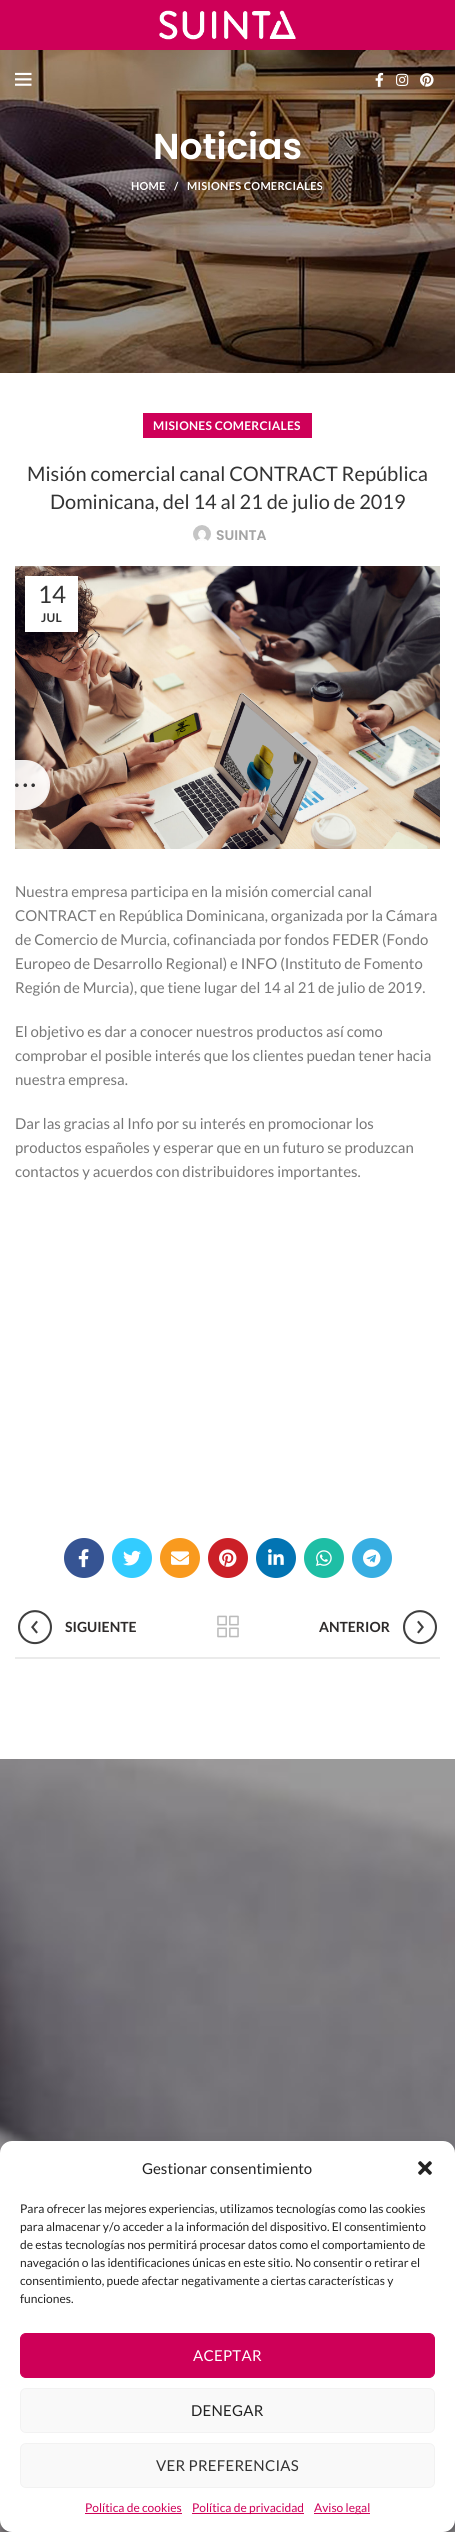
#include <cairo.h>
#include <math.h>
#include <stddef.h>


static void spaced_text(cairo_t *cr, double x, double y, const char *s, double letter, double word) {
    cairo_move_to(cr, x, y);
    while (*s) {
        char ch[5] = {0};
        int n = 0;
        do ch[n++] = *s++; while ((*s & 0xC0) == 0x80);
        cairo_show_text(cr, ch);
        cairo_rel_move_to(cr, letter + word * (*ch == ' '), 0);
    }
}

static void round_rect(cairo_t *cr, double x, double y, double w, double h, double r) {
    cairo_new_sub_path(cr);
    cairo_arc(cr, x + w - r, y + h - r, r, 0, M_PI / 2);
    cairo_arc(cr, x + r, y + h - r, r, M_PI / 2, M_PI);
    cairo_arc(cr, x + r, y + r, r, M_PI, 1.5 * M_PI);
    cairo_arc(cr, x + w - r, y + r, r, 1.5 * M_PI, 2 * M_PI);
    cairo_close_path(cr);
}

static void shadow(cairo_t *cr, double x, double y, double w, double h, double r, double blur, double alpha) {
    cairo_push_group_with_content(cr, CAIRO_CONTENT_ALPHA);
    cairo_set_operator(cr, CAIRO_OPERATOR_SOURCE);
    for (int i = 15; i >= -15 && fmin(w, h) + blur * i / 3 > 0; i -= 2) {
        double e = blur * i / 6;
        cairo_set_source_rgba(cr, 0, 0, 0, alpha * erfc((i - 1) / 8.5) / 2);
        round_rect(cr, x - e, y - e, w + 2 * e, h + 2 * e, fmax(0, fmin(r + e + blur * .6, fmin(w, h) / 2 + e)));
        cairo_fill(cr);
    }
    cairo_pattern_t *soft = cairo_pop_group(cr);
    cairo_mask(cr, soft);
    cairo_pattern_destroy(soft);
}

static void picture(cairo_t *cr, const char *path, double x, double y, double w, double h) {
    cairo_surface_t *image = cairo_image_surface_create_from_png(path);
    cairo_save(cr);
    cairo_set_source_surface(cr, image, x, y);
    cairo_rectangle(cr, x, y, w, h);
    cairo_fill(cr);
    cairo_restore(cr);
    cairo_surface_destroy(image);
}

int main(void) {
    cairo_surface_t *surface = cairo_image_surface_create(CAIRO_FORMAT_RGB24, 455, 2532);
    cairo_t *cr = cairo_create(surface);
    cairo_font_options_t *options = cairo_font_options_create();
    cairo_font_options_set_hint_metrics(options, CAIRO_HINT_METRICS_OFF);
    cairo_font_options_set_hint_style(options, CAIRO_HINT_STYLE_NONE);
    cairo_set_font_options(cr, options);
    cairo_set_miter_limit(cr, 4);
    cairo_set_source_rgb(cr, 1, 1, 1);
    cairo_paint(cr);
    cairo_set_source_rgb(cr, 0.808, 0, 0.345);
    cairo_rectangle(cr, 0, 0, 455, 50);
    cairo_fill(cr);
    picture(cr, "img1.png", 159, 10, 137, 30);
    picture(cr, "img6.png", 0, 50, 455, 323);
    picture(cr, "img2.png", 15, 72, 17, 14);
    picture(cr, "img3.png", 375, 72, 9, 15);
    picture(cr, "img4.png", 396, 73, 13, 13);
    picture(cr, "img5.png", 420, 73, 14, 14);
    cairo_select_font_face(cr, "Poppins SemiBold", CAIRO_FONT_SLANT_NORMAL, CAIRO_FONT_WEIGHT_NORMAL);
    cairo_set_font_size(cr, 36);
    cairo_set_source_rgb(cr, 1, 1, 1);
    cairo_move_to(cr, 153, 159);
    cairo_show_text(cr, "Noticias");
    cairo_select_font_face(cr, "Lato", CAIRO_FONT_SLANT_NORMAL, CAIRO_FONT_WEIGHT_BOLD);
    cairo_set_font_size(cr, 11);
    spaced_text(cr, 131, 190, "HOME", 0.25, 0);
    spaced_text(cr, 174, 190, "/", 0.25, 0);
    spaced_text(cr, 187, 190, "MISIONES COMERCIALES", 0.25, 0);
    cairo_set_source_rgb(cr, 0.808, 0, 0.345);
    cairo_rectangle(cr, 143, 413, 169, 25);
    cairo_fill(cr);
    cairo_set_font_size(cr, 12);
    cairo_set_source_rgb(cr, 1, 1, 1);
    spaced_text(cr, 153, 430, "MISIONES COMERCIALES", 0.25, 0);
    cairo_select_font_face(cr, "Lato", CAIRO_FONT_SLANT_NORMAL, CAIRO_FONT_WEIGHT_NORMAL);
    cairo_set_font_size(cr, 20);
    cairo_set_source_rgb(cr, 0.2, 0.2, 0.2);
    cairo_move_to(cr, 27, 481);
    cairo_show_text(cr, "Misión comercial canal CONTRACT República");
    cairo_move_to(cr, 50, 509);
    cairo_show_text(cr, "Dominicana, del 14 al 21 de julio de 2019");
    picture(cr, "img7.png", 193, 525, 18, 16);
    cairo_select_font_face(cr, "Poppins SemiBold", CAIRO_FONT_SLANT_NORMAL, CAIRO_FONT_WEIGHT_NORMAL);
    cairo_set_font_size(cr, 14);
    cairo_set_source_rgb(cr, 0.643, 0.643, 0.643);
    cairo_move_to(cr, 216, 540);
    cairo_show_text(cr, "SUINTA");
    picture(cr, "img8.png", 15, 566, 425, 283);
    cairo_set_source_rgb(cr, 0, 0, 0);
    shadow(cr, 25, 576, 53, 56, 0, 4.5, 0.1);
    cairo_set_source_rgb(cr, 1, 1, 1);
    cairo_rectangle(cr, 25, 576, 53, 56);
    cairo_fill(cr);
    cairo_select_font_face(cr, "Lato", CAIRO_FONT_SLANT_NORMAL, CAIRO_FONT_WEIGHT_NORMAL);
    cairo_set_font_size(cr, 24);
    cairo_set_source_rgb(cr, 0.2, 0.2, 0.2);
    cairo_move_to(cr, 38, 603);
    cairo_show_text(cr, "14");
    cairo_select_font_face(cr, "Lato", CAIRO_FONT_SLANT_NORMAL, CAIRO_FONT_WEIGHT_BOLD);
    cairo_set_font_size(cr, 12);
    spaced_text(cr, 41, 622, "JUL", 0.25, 0);
    cairo_select_font_face(cr, "Lato", CAIRO_FONT_SLANT_NORMAL, CAIRO_FONT_WEIGHT_NORMAL);
    cairo_set_font_size(cr, 15);
    cairo_set_source_rgb(cr, 0.467, 0.467, 0.467);
    cairo_move_to(cr, 15, 897);
    cairo_show_text(cr, "Nuestra empresa participa en la misión comercial canal");
    cairo_move_to(cr, 15, 921);
    cairo_show_text(cr, "CONTRACT en República Dominicana, organizada por la Cámara");
    cairo_move_to(cr, 15, 945);
    cairo_show_text(cr, "de Comercio de Murcia, cofinanciada por fondos FEDER (Fondo");
    cairo_move_to(cr, 15, 969);
    cairo_show_text(cr, "Europeo de Desarrollo Regional) e INFO (Instituto de Fomento");
    cairo_move_to(cr, 15, 993);
    cairo_show_text(cr, "Región de Murcia), que tiene lugar del 14 al 21 de julio de 2019.");
    cairo_move_to(cr, 15, 1037);
    cairo_show_text(cr, "El objetivo es dar a conocer nuestros productos así como");
    cairo_move_to(cr, 15, 1061);
    cairo_show_text(cr, "comprobar el posible interés que los clientes puedan tener hacia");
    cairo_move_to(cr, 15, 1085);
    cairo_show_text(cr, "nuestra empresa.");
    cairo_move_to(cr, 15, 1129);
    cairo_show_text(cr, "Dar las gracias al Info por su interés en promocionar los");
    cairo_move_to(cr, 15, 1153);
    cairo_show_text(cr, "productos españoles y esperar que en un futuro se produzcan");
    cairo_move_to(cr, 15, 1177);
    cairo_show_text(cr, "contactos y acuerdos con distribuidores importantes.");
    cairo_set_source_rgb(cr, 0.212, 0.329, 0.576);
    cairo_new_path(cr);
    cairo_arc(cr, 84, 1558, 20, 0, 2 * M_PI);
    cairo_fill(cr);
    picture(cr, "img9.png", 78, 1549, 11, 19);
    cairo_set_source_rgb(cr, 0.2, 0.8, 1);
    cairo_arc(cr, 132, 1558, 20, 0, 2 * M_PI);
    cairo_fill(cr);
    picture(cr, "img10.png", 123, 1550, 18, 16);
    cairo_set_source_rgb(cr, 0.973, 0.604, 0.118);
    cairo_arc(cr, 180, 1558, 20, 0, 2 * M_PI);
    cairo_fill(cr);
    picture(cr, "img11.png", 171, 1551, 18, 14);
    cairo_set_source_rgb(cr, 0.796, 0.125, 0.153);
    cairo_arc(cr, 228, 1558, 20, 0, 2 * M_PI);
    cairo_fill(cr);
    picture(cr, "img12.png", 219, 1549, 18, 18);
    cairo_set_source_rgb(cr, 0.008, 0.455, 0.702);
    cairo_arc(cr, 276, 1558, 20, 0, 2 * M_PI);
    cairo_fill(cr);
    picture(cr, "img13.png", 268, 1549, 16, 16);
    cairo_set_source_rgb(cr, 0.118, 0.745, 0.647);
    cairo_arc(cr, 324, 1558, 20, 0, 2 * M_PI);
    cairo_fill(cr);
    picture(cr, "img14.png", 316, 1550, 16, 16);
    cairo_set_source_rgb(cr, 0.216, 0.682, 0.886);
    cairo_arc(cr, 372, 1558, 20, 0, 2 * M_PI);
    cairo_fill(cr);
    picture(cr, "img15.png", 363, 1549, 18, 18);
    cairo_set_source_rgb(cr, 0.918, 0.918, 0.918);
    cairo_rectangle(cr, 15, 1657, 425, 2);
    cairo_fill(cr);
    picture(cr, "img16.png", 18, 1610, 34, 35);
    cairo_select_font_face(cr, "Lato", CAIRO_FONT_SLANT_NORMAL, CAIRO_FONT_WEIGHT_BOLD);
    cairo_set_font_size(cr, 14);
    cairo_set_source_rgb(cr, 0.176, 0.165, 0.165);
    cairo_move_to(cr, 65, 1632);
    cairo_show_text(cr, "SIGUIENTE");
    picture(cr, "img17.png", 217, 1615, 22, 23);
    cairo_move_to(cr, 319, 1632);
    cairo_show_text(cr, "ANTERIOR");
    picture(cr, "img18.png", 403, 1610, 34, 35);
    picture(cr, "img19.png", 0, 1759, 455, 773);
    cairo_save(cr);
    cairo_set_fill_rule(cr, CAIRO_FILL_RULE_EVEN_ODD);
    cairo_new_path(cr);
    cairo_move_to(cr, 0, 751);
    cairo_line_to(cr, 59, 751);
    cairo_line_to(cr, 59, 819);
    cairo_line_to(cr, 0, 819);
    cairo_close_path(cr);
    cairo_move_to(cr, 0, 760);
    cairo_line_to(cr, 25, 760);
    cairo_curve_to(cr, 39, 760, 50, 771, 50, 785);
    cairo_curve_to(cr, 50, 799, 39, 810, 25, 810);
    cairo_line_to(cr, 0, 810);
    cairo_close_path(cr);
    cairo_clip(cr);
    cairo_set_source_rgb(cr, 0, 0, 0);
    shadow(cr, 0, 760, 50, 50, 25, 2.5, 0.17);
    cairo_restore(cr);
    cairo_set_source_rgba(cr, 1, 1, 1, 0.9);
    cairo_new_path(cr);
    cairo_move_to(cr, 0, 760);
    cairo_line_to(cr, 25, 760);
    cairo_curve_to(cr, 39, 760, 50, 771, 50, 785);
    cairo_curve_to(cr, 50, 799, 39, 810, 25, 810);
    cairo_line_to(cr, 0, 810);
    cairo_close_path(cr);
    cairo_fill(cr);
    picture(cr, "img20.png", 15, 783, 20, 5);
    cairo_set_source_rgb(cr, 0, 0, 0);
    shadow(cr, 0, 2147, 455, 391, 12, 3, 0.23);
    shadow(cr, 0, 2151, 455, 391, 12, 10, 0.19);
    cairo_set_source_rgb(cr, 1, 1, 1);
    round_rect(cr, 0, 2141, 455, 391, 12);
    cairo_fill(cr);
    cairo_select_font_face(cr, "Lato", CAIRO_FONT_SLANT_NORMAL, CAIRO_FONT_WEIGHT_NORMAL);
    cairo_set_font_size(cr, 15);
    cairo_set_source_rgb(cr, 0.133, 0.133, 0.133);
    cairo_move_to(cr, 142, 2174);
    cairo_show_text(cr, "Gestionar consentimiento");
    picture(cr, "img21.png", 418, 2161, 14, 14);
    cairo_set_font_size(cr, 12);
    cairo_move_to(cr, 20, 2213);
    cairo_show_text(cr, "Para ofrecer las mejores experiencias, utilizamos tecnologías como las cookies");
    cairo_move_to(cr, 20, 2231);
    cairo_show_text(cr, "para almacenar y/o acceder a la información del dispositivo. El consentimiento");
    cairo_move_to(cr, 20, 2249);
    cairo_show_text(cr, "de estas tecnologías nos permitirá procesar datos como el comportamiento de");
    cairo_move_to(cr, 20, 2267);
    cairo_show_text(cr, "navegación o las identificaciones únicas en este sitio. No consentir o retirar el");
    cairo_move_to(cr, 20, 2285);
    cairo_show_text(cr, "consentimiento, puede afectar negativamente a ciertas características y");
    cairo_move_to(cr, 20, 2303);
    cairo_show_text(cr, "funciones.");
    cairo_set_source_rgb(cr, 0.808, 0, 0.345);
    round_rect(cr, 20.5, 2333.5, 414, 44, 5.5);
    cairo_fill_preserve(cr);
    cairo_set_line_width(cr, 1);
    cairo_stroke(cr);
    cairo_set_font_size(cr, 15);
    cairo_set_source_rgb(cr, 1, 1, 1);
    spaced_text(cr, 193, 2361, "ACEPTAR", 0.25, 0);
    cairo_set_source_rgb(cr, 0.976, 0.976, 0.976);
    round_rect(cr, 20.5, 2388.5, 414, 44, 5.5);
    cairo_fill_preserve(cr);
    cairo_set_source_rgb(cr, 0.949, 0.949, 0.949);
    cairo_stroke(cr);
    cairo_set_source_rgb(cr, 0.133, 0.133, 0.133);
    spaced_text(cr, 191, 2416, "DENEGAR", 0.25, 0);
    cairo_set_source_rgb(cr, 0.976, 0.976, 0.976);
    round_rect(cr, 20.5, 2443.5, 414, 44, 5.5);
    cairo_fill_preserve(cr);
    cairo_set_source_rgb(cr, 0.949, 0.949, 0.949);
    cairo_stroke(cr);
    cairo_set_source_rgb(cr, 0.2, 0.2, 0.2);
    spaced_text(cr, 156, 2471, "VER PREFERENCIAS", 0.25, 0);
    cairo_set_font_size(cr, 12);
    cairo_set_source_rgb(cr, 0.808, 0, 0.345);
    cairo_move_to(cr, 85, 2512);
    cairo_show_text(cr, "Política de cookies");
    cairo_rectangle(cr, 85, 2513, 97, 1);
    cairo_fill(cr);
    cairo_rectangle(cr, 192, 2513, 112, 1);
    cairo_fill(cr);
    cairo_move_to(cr, 192, 2512);
    cairo_show_text(cr, "Política de privacidad");
    cairo_rectangle(cr, 314, 2513, 56, 1);
    cairo_fill(cr);
    cairo_move_to(cr, 314, 2512);
    cairo_show_text(cr, "Aviso legal");
    cairo_surface_write_to_png(surface, "page.png");
    cairo_font_options_destroy(options);
    cairo_destroy(cr);
    cairo_surface_destroy(surface);
    return 0;
}
